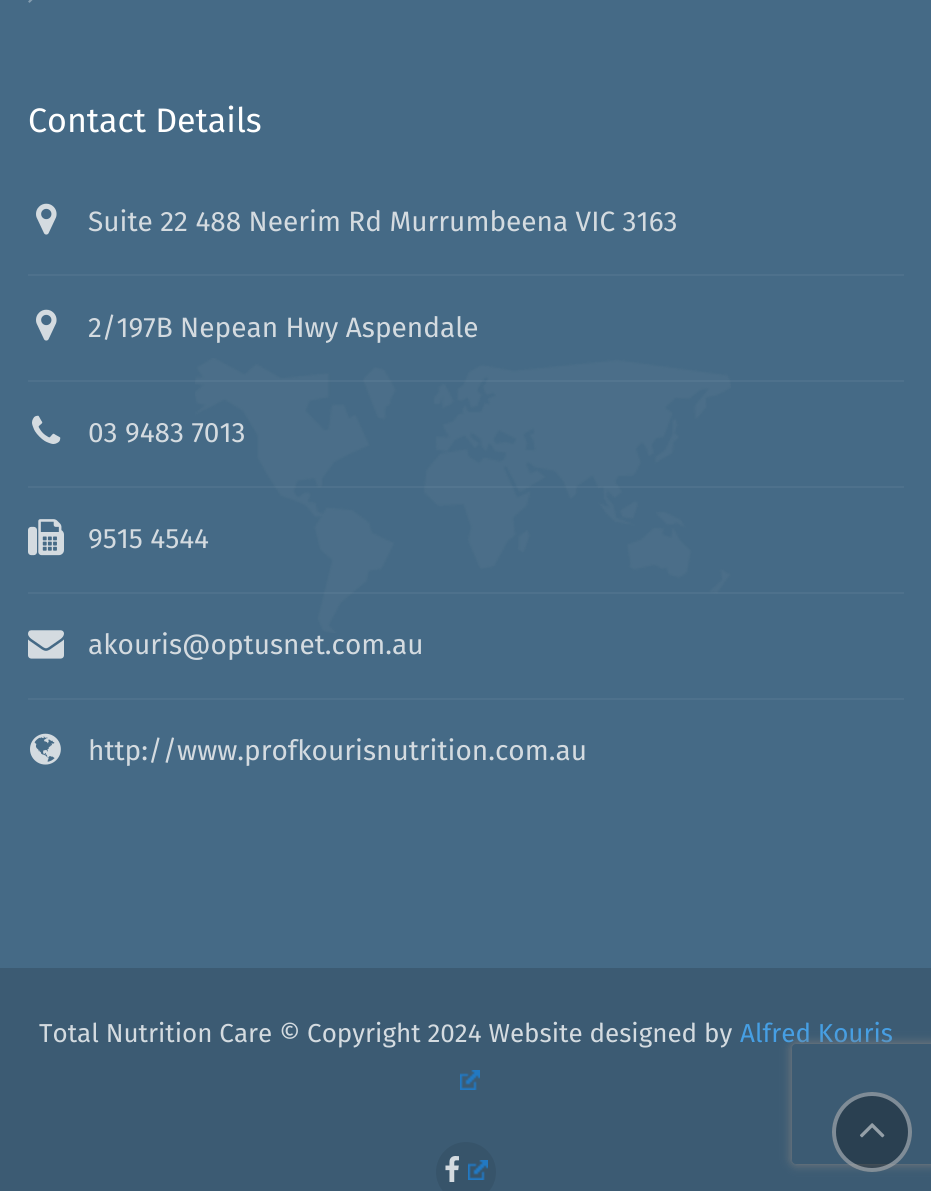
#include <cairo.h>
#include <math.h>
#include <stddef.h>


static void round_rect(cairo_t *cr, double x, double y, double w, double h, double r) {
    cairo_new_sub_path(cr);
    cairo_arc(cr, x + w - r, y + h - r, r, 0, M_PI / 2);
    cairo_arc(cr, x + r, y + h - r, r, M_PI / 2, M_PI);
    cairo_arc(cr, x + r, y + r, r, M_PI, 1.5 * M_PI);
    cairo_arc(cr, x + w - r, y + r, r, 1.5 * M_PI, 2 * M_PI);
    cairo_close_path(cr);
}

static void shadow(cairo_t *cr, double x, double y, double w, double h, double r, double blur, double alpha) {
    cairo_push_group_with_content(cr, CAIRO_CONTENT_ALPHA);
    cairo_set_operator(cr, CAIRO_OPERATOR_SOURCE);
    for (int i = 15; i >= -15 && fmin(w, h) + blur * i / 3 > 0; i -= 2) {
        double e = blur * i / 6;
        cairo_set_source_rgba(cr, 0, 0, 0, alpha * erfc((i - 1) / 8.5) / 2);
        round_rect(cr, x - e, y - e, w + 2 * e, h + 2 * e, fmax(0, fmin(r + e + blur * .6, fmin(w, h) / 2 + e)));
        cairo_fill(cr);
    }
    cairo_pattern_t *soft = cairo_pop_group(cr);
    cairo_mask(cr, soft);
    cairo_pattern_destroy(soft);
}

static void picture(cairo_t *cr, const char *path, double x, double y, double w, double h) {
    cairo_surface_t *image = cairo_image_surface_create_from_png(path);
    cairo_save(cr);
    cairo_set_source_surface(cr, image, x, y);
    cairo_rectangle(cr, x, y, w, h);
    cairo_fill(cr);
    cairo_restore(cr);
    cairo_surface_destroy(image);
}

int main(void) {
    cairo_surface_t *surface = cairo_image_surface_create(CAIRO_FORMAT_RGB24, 931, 1191);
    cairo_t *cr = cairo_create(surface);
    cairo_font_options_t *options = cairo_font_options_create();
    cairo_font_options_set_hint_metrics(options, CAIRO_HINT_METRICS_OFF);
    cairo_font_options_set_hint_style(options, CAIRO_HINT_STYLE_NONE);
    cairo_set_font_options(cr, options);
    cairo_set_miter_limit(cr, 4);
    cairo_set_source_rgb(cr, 0.235, 0.357, 0.451);
    cairo_paint(cr);
    cairo_set_source_rgb(cr, 0.271, 0.416, 0.525);
    cairo_rectangle(cr, 0, 0, 931, 968);
    cairo_fill(cr);
    picture(cr, "img1.png", 28, 0, 5, 3);
    cairo_select_font_face(cr, "Fira Sans", CAIRO_FONT_SLANT_NORMAL, CAIRO_FONT_WEIGHT_NORMAL);
    cairo_set_font_size(cr, 34);
    cairo_set_source_rgb(cr, 1, 1, 1);
    cairo_move_to(cr, 28, 132);
    cairo_show_text(cr, "Contact Details");
    cairo_set_source_rgb(cr, 0.306, 0.443, 0.549);
    cairo_rectangle(cr, 28, 274, 876, 2);
    cairo_fill(cr);
    picture(cr, "img2.png", 36, 203, 21, 32);
    cairo_set_font_size(cr, 28);
    cairo_set_source_rgb(cr, 0.831, 0.859, 0.878);
    cairo_move_to(cr, 88, 231);
    cairo_show_text(cr, "Suite 22 488 Neerim Rd Murrumbeena VIC 3163");
    picture(cr, "img4.png", 195, 358, 536, 275);
    cairo_set_source_rgba(cr, 1, 1, 1, 0.05);
    cairo_rectangle(cr, 28, 380, 876, 2);
    cairo_fill(cr);
    picture(cr, "img2.png", 36, 309, 21, 32);
    cairo_set_source_rgb(cr, 0.831, 0.859, 0.878);
    cairo_move_to(cr, 88, 337);
    cairo_show_text(cr, "2/197B Nepean Hwy Aspendale");
    cairo_set_source_rgba(cr, 1, 1, 1, 0.05);
    cairo_rectangle(cr, 28, 486, 876, 2);
    cairo_fill(cr);
    picture(cr, "img3.png", 32, 415, 29, 29);
    cairo_set_source_rgb(cr, 0.831, 0.859, 0.878);
    cairo_move_to(cr, 88, 442);
    cairo_show_text(cr, "03 9483 7013");
    cairo_set_source_rgba(cr, 1, 1, 1, 0.05);
    cairo_rectangle(cr, 28, 592, 876, 2);
    cairo_fill(cr);
    picture(cr, "img5.png", 28, 519, 36, 37);
    cairo_set_source_rgb(cr, 0.831, 0.859, 0.878);
    cairo_move_to(cr, 88, 548);
    cairo_show_text(cr, "9515 4544");
    cairo_set_source_rgb(cr, 0.306, 0.443, 0.549);
    cairo_rectangle(cr, 28, 698, 876, 2);
    cairo_fill(cr);
    picture(cr, "img6.png", 28, 630, 36, 29);
    cairo_set_source_rgb(cr, 0.831, 0.859, 0.878);
    cairo_move_to(cr, 88, 654);
    cairo_show_text(cr, "akouris@optusnet.com.au");
    picture(cr, "img7.png", 30, 733, 31, 32);
    cairo_move_to(cr, 88, 760);
    cairo_show_text(cr, "http://www.profkourisnutrition.com.au");
    cairo_set_font_size(cr, 26);
    cairo_move_to(cr, 39, 1042);
    cairo_show_text(cr, "Total Nutrition Care © Copyright 2024 Website designed by");
    cairo_set_source_rgb(cr, 0.275, 0.624, 0.894);
    cairo_move_to(cr, 740, 1042);
    cairo_show_text(cr, "Alfred Kouris");
    picture(cr, "img8.png", 460, 1070, 20, 20);
    cairo_set_source_rgb(cr, 0.216, 0.329, 0.416);
    cairo_arc(cr, 466, 1172, 30, 0, 2 * M_PI);
    cairo_fill(cr);
    picture(cr, "img9.png", 445, 1156, 14, 26);
    picture(cr, "img10.png", 468, 1160, 20, 20);
    cairo_save(cr);
    cairo_set_fill_rule(cr, CAIRO_FILL_RULE_EVEN_ODD);
    cairo_new_path(cr);
    cairo_move_to(cr, 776, 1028);
    cairo_line_to(cr, 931, 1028);
    cairo_line_to(cr, 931, 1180);
    cairo_line_to(cr, 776, 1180);
    cairo_close_path(cr);
    cairo_move_to(cr, 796, 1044);
    cairo_line_to(cr, 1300, 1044);
    cairo_curve_to(cr, 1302, 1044, 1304, 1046, 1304, 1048);
    cairo_line_to(cr, 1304, 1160);
    cairo_curve_to(cr, 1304, 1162, 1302, 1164, 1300, 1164);
    cairo_line_to(cr, 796, 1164);
    cairo_curve_to(cr, 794, 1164, 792, 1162, 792, 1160);
    cairo_line_to(cr, 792, 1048);
    cairo_curve_to(cr, 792, 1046, 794, 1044, 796, 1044);
    cairo_close_path(cr);
    cairo_clip(cr);
    cairo_set_source_rgb(cr, 0.502, 0.502, 0.502);
    shadow(cr, 792, 1044, 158, 120, 4, 5, 1);
    cairo_restore(cr);
    cairo_set_source_rgba(cr, 0, 0, 0, 0.3);
    cairo_arc(cr, 872, 1132, 40, 0, 2 * M_PI);
    cairo_fill(cr);
    cairo_arc(cr, 872, 1132, 38, 0, 2 * M_PI);
    cairo_set_source_rgba(cr, 1, 1, 1, 0.4);
    cairo_set_line_width(cr, 4);
    cairo_stroke(cr);
    picture(cr, "img11.png", 860, 1123, 25, 15);
    cairo_surface_write_to_png(surface, "page.png");
    cairo_font_options_destroy(options);
    cairo_destroy(cr);
    cairo_surface_destroy(surface);
    return 0;
}
